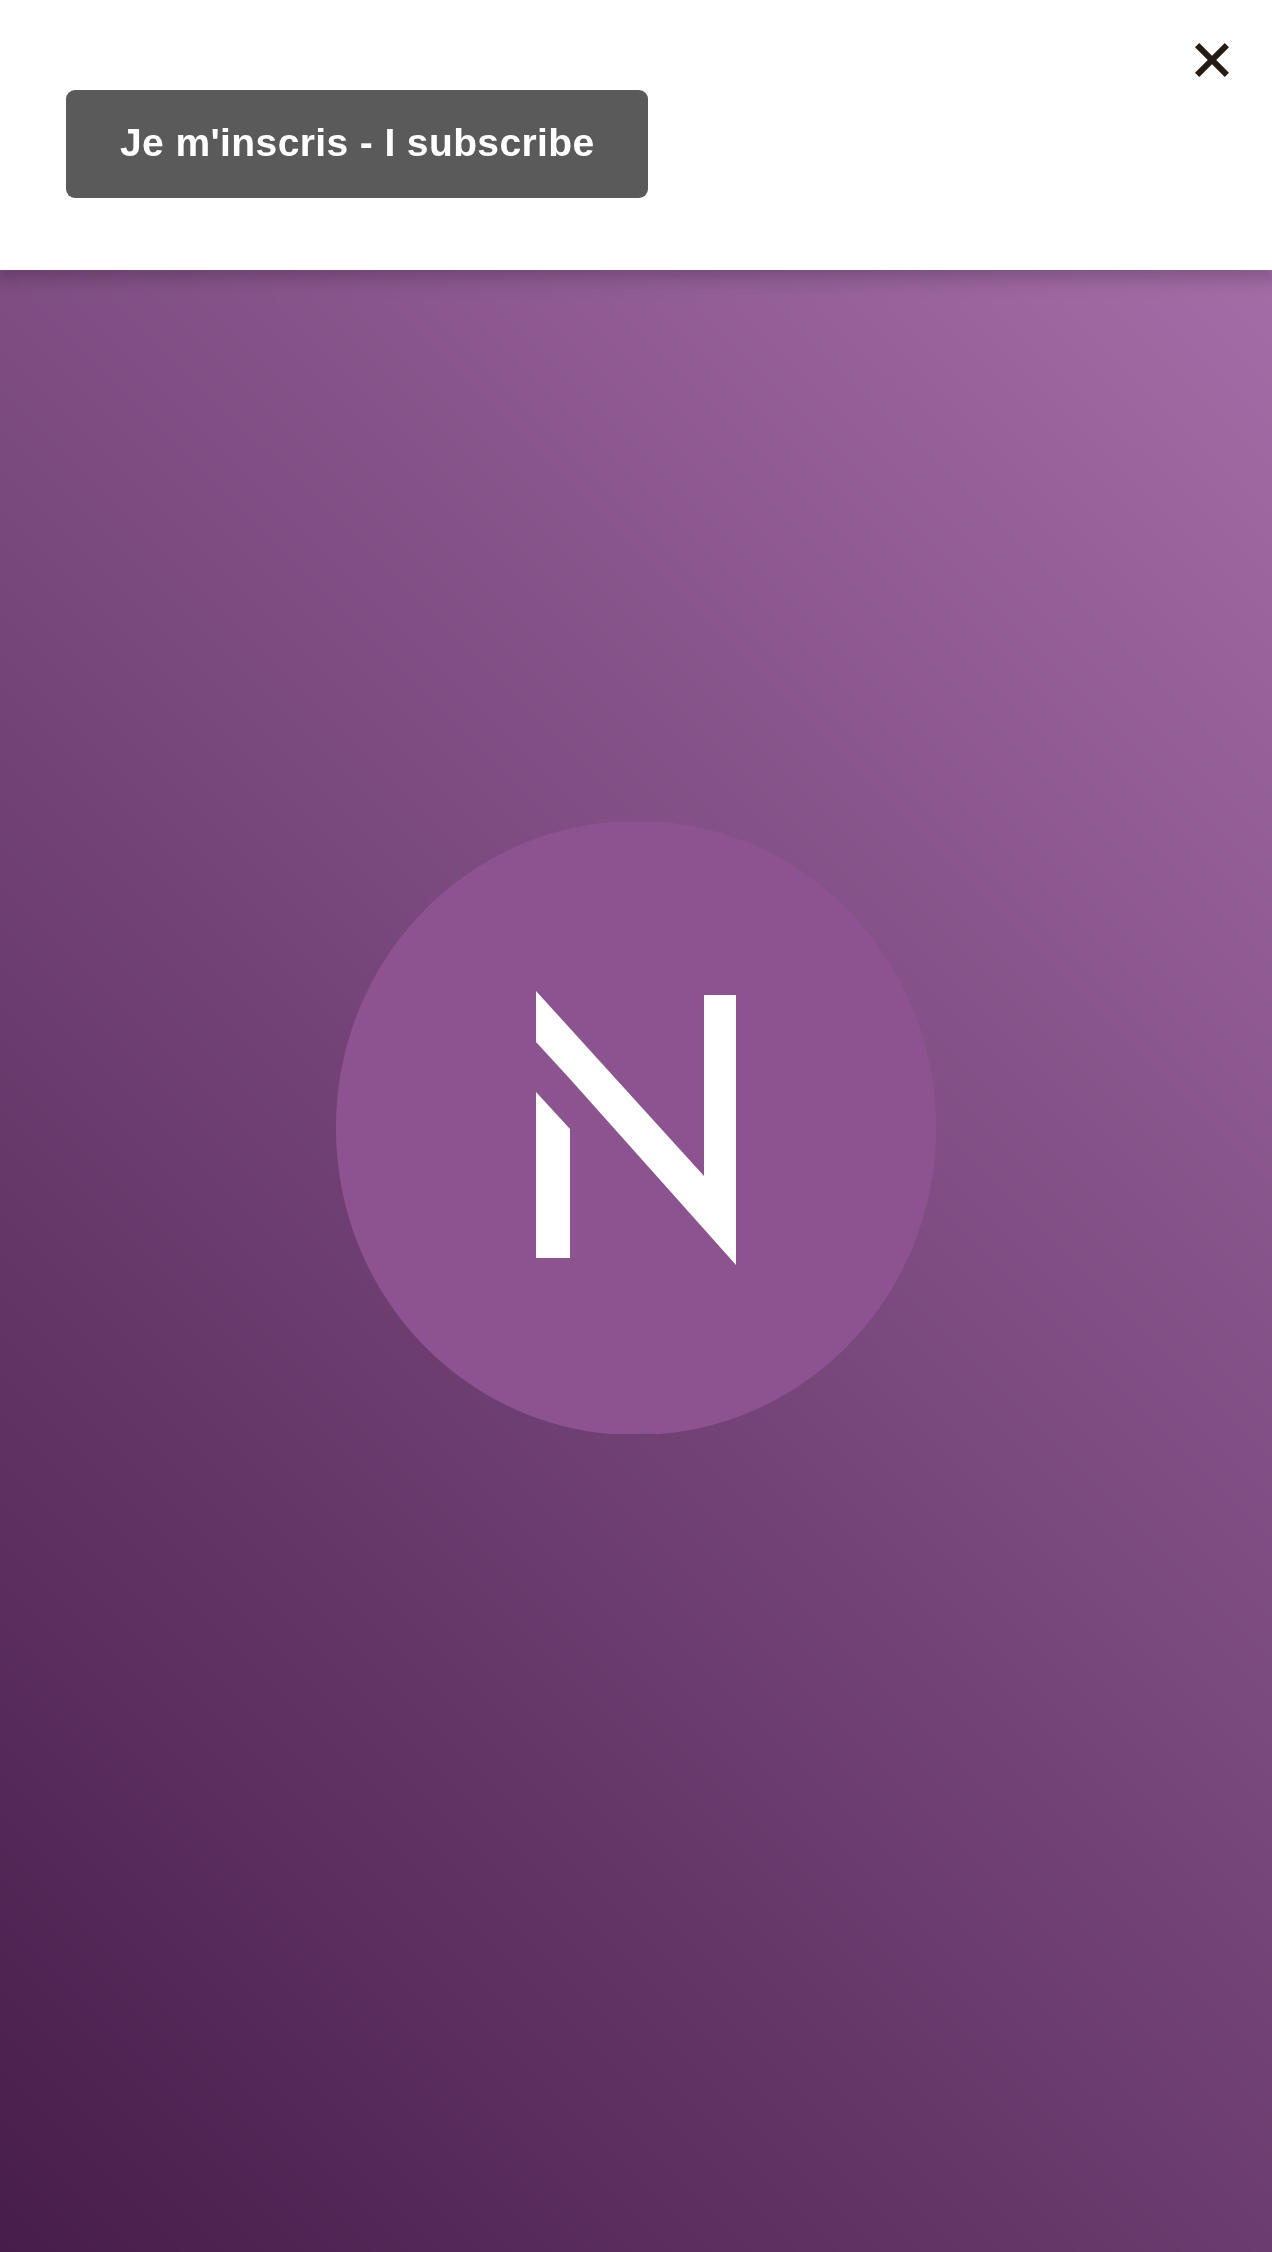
#include <cairo.h>
#include <math.h>
#include <stddef.h>


static void round_rect(cairo_t *cr, double x, double y, double w, double h, double r) {
    cairo_new_sub_path(cr);
    cairo_arc(cr, x + w - r, y + h - r, r, 0, M_PI / 2);
    cairo_arc(cr, x + r, y + h - r, r, M_PI / 2, M_PI);
    cairo_arc(cr, x + r, y + r, r, M_PI, 1.5 * M_PI);
    cairo_arc(cr, x + w - r, y + r, r, 1.5 * M_PI, 2 * M_PI);
    cairo_close_path(cr);
}

static void shadow(cairo_t *cr, double x, double y, double w, double h, double r, double blur, double alpha) {
    cairo_push_group_with_content(cr, CAIRO_CONTENT_ALPHA);
    cairo_set_operator(cr, CAIRO_OPERATOR_SOURCE);
    for (int i = 15; i >= -15 && fmin(w, h) + blur * i / 3 > 0; i -= 2) {
        double e = blur * i / 6;
        cairo_set_source_rgba(cr, 0, 0, 0, alpha * erfc((i - 1) / 8.5) / 2);
        round_rect(cr, x - e, y - e, w + 2 * e, h + 2 * e, fmax(0, fmin(r + e + blur * .6, fmin(w, h) / 2 + e)));
        cairo_fill(cr);
    }
    cairo_pattern_t *soft = cairo_pop_group(cr);
    cairo_mask(cr, soft);
    cairo_pattern_destroy(soft);
}

static void picture(cairo_t *cr, const char *path, double x, double y, double w, double h) {
    cairo_surface_t *image = cairo_image_surface_create_from_png(path);
    cairo_save(cr);
    cairo_set_source_surface(cr, image, x, y);
    cairo_rectangle(cr, x, y, w, h);
    cairo_fill(cr);
    cairo_restore(cr);
    cairo_surface_destroy(image);
}

int main(void) {
    cairo_surface_t *surface = cairo_image_surface_create(CAIRO_FORMAT_RGB24, 1272, 2252);
    cairo_t *cr = cairo_create(surface);
    cairo_font_options_t *options = cairo_font_options_create();
    cairo_font_options_set_hint_metrics(options, CAIRO_HINT_METRICS_OFF);
    cairo_font_options_set_hint_style(options, CAIRO_HINT_STYLE_NONE);
    cairo_set_font_options(cr, options);
    cairo_set_miter_limit(cr, 4);
    cairo_pattern_t *gradient;
    cairo_set_source_rgb(cr, 1, 1, 1);
    cairo_paint(cr);
    gradient = cairo_pattern_create_linear(-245, 2008, 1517, 245);
    cairo_pattern_add_color_stop_rgba(gradient, 0, 0.278, 0.114, 0.294, 1);
    cairo_pattern_add_color_stop_rgba(gradient, 1, 0.671, 0.451, 0.682, 1);
    cairo_set_source(cr, gradient);
    cairo_pattern_destroy(gradient);
    cairo_rectangle(cr, 0, 270, 1272, 180);
    cairo_fill(cr);
    cairo_set_source_rgb(cr, 0, 0, 0);
    shadow(cr, 0, 9, 1272, 270, 0, 9, 0.2);
    cairo_set_source_rgb(cr, 1, 1, 1);
    cairo_rectangle(cr, 0, 0, 1272, 270);
    cairo_fill(cr);
    picture(cr, "img1.png", 66, 43, 1163, 155);
    gradient = cairo_pattern_create_linear(-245, 2007, 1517, 245);
    cairo_pattern_add_color_stop_rgba(gradient, 0, 0.278, 0.114, 0.294, 1);
    cairo_pattern_add_color_stop_rgba(gradient, 1, 0.671, 0.451, 0.682, 1);
    cairo_set_source(cr, gradient);
    cairo_pattern_destroy(gradient);
    cairo_rectangle(cr, 0, 450, 1272, 450);
    cairo_fill(cr);
    gradient = cairo_pattern_create_linear(-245, 2008, 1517, 245);
    cairo_pattern_add_color_stop_rgba(gradient, 0, 0.278, 0.114, 0.294, 1);
    cairo_pattern_add_color_stop_rgba(gradient, 1, 0.671, 0.451, 0.682, 1);
    cairo_set_source(cr, gradient);
    cairo_pattern_destroy(gradient);
    cairo_rectangle(cr, 0, 900, 1272, 453);
    cairo_fill(cr);
    gradient = cairo_pattern_create_linear(-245, 2009, 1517, 246);
    cairo_pattern_add_color_stop_rgba(gradient, 0, 0.278, 0.114, 0.294, 1);
    cairo_pattern_add_color_stop_rgba(gradient, 1, 0.671, 0.451, 0.682, 1);
    cairo_set_source(cr, gradient);
    cairo_pattern_destroy(gradient);
    cairo_rectangle(cr, 0, 1353, 1272, 450);
    cairo_fill(cr);
    cairo_save(cr);
    cairo_rectangle(cr, 336, 822, 600, 612);
    cairo_clip(cr);
    cairo_set_source_rgb(cr, 0.553, 0.325, 0.569);
    cairo_set_fill_rule(cr, CAIRO_FILL_RULE_EVEN_ODD);
    cairo_new_path(cr);
    cairo_move_to(cr, 936, 1128);
    cairo_curve_to(cr, 936, 1298, 802, 1435, 635, 1435);
    cairo_curve_to(cr, 470, 1435, 336, 1298, 336, 1128);
    cairo_curve_to(cr, 336, 958, 470, 821, 637, 821);
    cairo_curve_to(cr, 802, 821, 936, 958, 936, 1128);
    cairo_fill(cr);
    cairo_restore(cr);
    cairo_set_source_rgb(cr, 1, 1, 1);
    cairo_set_fill_rule(cr, CAIRO_FILL_RULE_EVEN_ODD);
    cairo_new_path(cr);
    cairo_move_to(cr, 536, 991);
    cairo_line_to(cr, 704, 1176);
    cairo_line_to(cr, 704, 995);
    cairo_line_to(cr, 736, 995);
    cairo_line_to(cr, 736, 1265);
    cairo_line_to(cr, 570, 1079);
    cairo_line_to(cr, 536, 1042);
    cairo_close_path(cr);
    cairo_move_to(cr, 536, 1092);
    cairo_line_to(cr, 570, 1129);
    cairo_line_to(cr, 570, 1258);
    cairo_line_to(cr, 536, 1258);
    cairo_close_path(cr);
    cairo_fill(cr);
    gradient = cairo_pattern_create_linear(-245, 2008, 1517, 245);
    cairo_pattern_add_color_stop_rgba(gradient, 0, 0.278, 0.114, 0.294, 1);
    cairo_pattern_add_color_stop_rgba(gradient, 1, 0.671, 0.451, 0.682, 1);
    cairo_set_source(cr, gradient);
    cairo_pattern_destroy(gradient);
    cairo_rectangle(cr, 0, 1803, 1272, 449);
    cairo_fill(cr);
    cairo_surface_write_to_png(surface, "page.png");
    cairo_font_options_destroy(options);
    cairo_destroy(cr);
    cairo_surface_destroy(surface);
    return 0;
}
